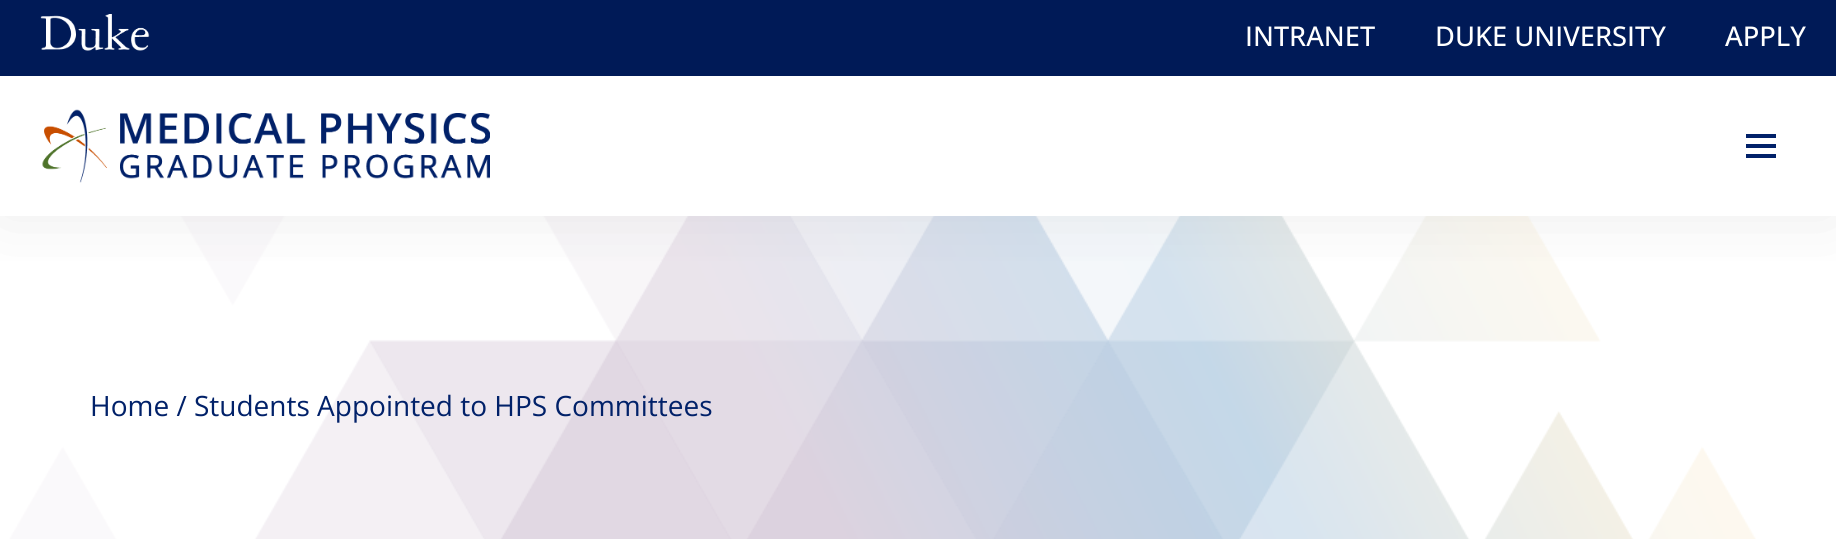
#include <cairo.h>
#include <math.h>
#include <stddef.h>


static void round_rect(cairo_t *cr, double x, double y, double w, double h, double r) {
    cairo_new_sub_path(cr);
    cairo_arc(cr, x + w - r, y + h - r, r, 0, M_PI / 2);
    cairo_arc(cr, x + r, y + h - r, r, M_PI / 2, M_PI);
    cairo_arc(cr, x + r, y + r, r, M_PI, 1.5 * M_PI);
    cairo_arc(cr, x + w - r, y + r, r, 1.5 * M_PI, 2 * M_PI);
    cairo_close_path(cr);
}

static void shadow(cairo_t *cr, double x, double y, double w, double h, double r, double blur, double alpha) {
    cairo_push_group_with_content(cr, CAIRO_CONTENT_ALPHA);
    cairo_set_operator(cr, CAIRO_OPERATOR_SOURCE);
    for (int i = 15; i >= -15 && fmin(w, h) + blur * i / 3 > 0; i -= 2) {
        double e = blur * i / 6;
        cairo_set_source_rgba(cr, 0, 0, 0, alpha * erfc((i - 1) / 8.5) / 2);
        round_rect(cr, x - e, y - e, w + 2 * e, h + 2 * e, fmax(0, fmin(r + e + blur * .6, fmin(w, h) / 2 + e)));
        cairo_fill(cr);
    }
    cairo_pattern_t *soft = cairo_pop_group(cr);
    cairo_mask(cr, soft);
    cairo_pattern_destroy(soft);
}

static void picture(cairo_t *cr, const char *path, double x, double y, double w, double h) {
    cairo_surface_t *image = cairo_image_surface_create_from_png(path);
    cairo_save(cr);
    cairo_set_source_surface(cr, image, x, y);
    cairo_rectangle(cr, x, y, w, h);
    cairo_fill(cr);
    cairo_restore(cr);
    cairo_surface_destroy(image);
}

int main(void) {
    cairo_surface_t *surface = cairo_image_surface_create(CAIRO_FORMAT_RGB24, 1836, 539);
    cairo_t *cr = cairo_create(surface);
    cairo_font_options_t *options = cairo_font_options_create();
    cairo_font_options_set_hint_metrics(options, CAIRO_HINT_METRICS_OFF);
    cairo_font_options_set_hint_style(options, CAIRO_HINT_STYLE_NONE);
    cairo_set_font_options(cr, options);
    cairo_set_miter_limit(cr, 4);
    cairo_set_source_rgb(cr, 1, 1, 1);
    cairo_paint(cr);
    cairo_save(cr);
    cairo_rectangle(cr, 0, 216, 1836, 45);
    cairo_clip(cr);
    cairo_set_source_rgb(cr, 0, 0, 0);
    shadow(cr, 0, 76, 1836, 140, 0, 35, 0.2);
    cairo_restore(cr);
    picture(cr, "img1.png", 42, 109, 448, 74);
    cairo_set_source_rgb(cr, 0.004, 0.129, 0.412);
    cairo_rectangle(cr, 1746, 134, 30, 4);
    cairo_fill(cr);
    cairo_rectangle(cr, 1746, 144, 30, 4);
    cairo_fill(cr);
    cairo_rectangle(cr, 1746, 154, 30, 4);
    cairo_fill(cr);
    cairo_set_source_rgb(cr, 0, 0.102, 0.341);
    cairo_rectangle(cr, 0, 0, 1836, 76);
    cairo_fill(cr);
    picture(cr, "img2.png", 40, 14, 110, 37);
    cairo_select_font_face(cr, "Open Sans Medium", CAIRO_FONT_SLANT_NORMAL, CAIRO_FONT_WEIGHT_NORMAL);
    cairo_set_font_size(cr, 27.25);
    cairo_set_source_rgb(cr, 1, 1, 1);
    cairo_move_to(cr, 1245, 46);
    cairo_show_text(cr, "INTRANET");
    cairo_move_to(cr, 1435, 46);
    cairo_show_text(cr, "DUKE UNIVERSITY");
    cairo_move_to(cr, 1725, 46);
    cairo_show_text(cr, "APPLY");
    picture(cr, "img3.png", 9, 216, 1747, 323);
    cairo_set_source_rgba(cr, 1, 1, 1, 0.63);
    cairo_rectangle(cr, 0, 216, 1836, 323);
    cairo_fill(cr);
    cairo_select_font_face(cr, "Open Sans", CAIRO_FONT_SLANT_NORMAL, CAIRO_FONT_WEIGHT_NORMAL);
    cairo_set_font_size(cr, 28);
    cairo_set_source_rgb(cr, 0.004, 0.129, 0.412);
    cairo_move_to(cr, 90, 416);
    cairo_show_text(cr, "Home / Students Appointed to HPS Committees");
    cairo_surface_write_to_png(surface, "page.png");
    cairo_font_options_destroy(options);
    cairo_destroy(cr);
    cairo_surface_destroy(surface);
    return 0;
}
